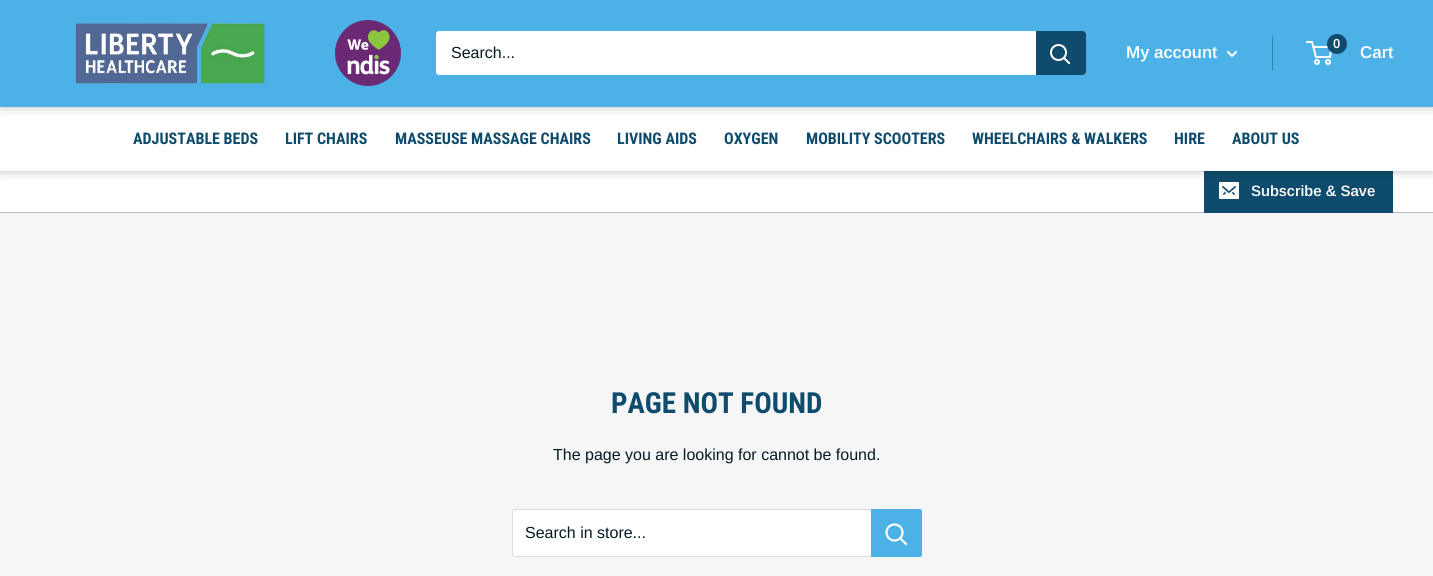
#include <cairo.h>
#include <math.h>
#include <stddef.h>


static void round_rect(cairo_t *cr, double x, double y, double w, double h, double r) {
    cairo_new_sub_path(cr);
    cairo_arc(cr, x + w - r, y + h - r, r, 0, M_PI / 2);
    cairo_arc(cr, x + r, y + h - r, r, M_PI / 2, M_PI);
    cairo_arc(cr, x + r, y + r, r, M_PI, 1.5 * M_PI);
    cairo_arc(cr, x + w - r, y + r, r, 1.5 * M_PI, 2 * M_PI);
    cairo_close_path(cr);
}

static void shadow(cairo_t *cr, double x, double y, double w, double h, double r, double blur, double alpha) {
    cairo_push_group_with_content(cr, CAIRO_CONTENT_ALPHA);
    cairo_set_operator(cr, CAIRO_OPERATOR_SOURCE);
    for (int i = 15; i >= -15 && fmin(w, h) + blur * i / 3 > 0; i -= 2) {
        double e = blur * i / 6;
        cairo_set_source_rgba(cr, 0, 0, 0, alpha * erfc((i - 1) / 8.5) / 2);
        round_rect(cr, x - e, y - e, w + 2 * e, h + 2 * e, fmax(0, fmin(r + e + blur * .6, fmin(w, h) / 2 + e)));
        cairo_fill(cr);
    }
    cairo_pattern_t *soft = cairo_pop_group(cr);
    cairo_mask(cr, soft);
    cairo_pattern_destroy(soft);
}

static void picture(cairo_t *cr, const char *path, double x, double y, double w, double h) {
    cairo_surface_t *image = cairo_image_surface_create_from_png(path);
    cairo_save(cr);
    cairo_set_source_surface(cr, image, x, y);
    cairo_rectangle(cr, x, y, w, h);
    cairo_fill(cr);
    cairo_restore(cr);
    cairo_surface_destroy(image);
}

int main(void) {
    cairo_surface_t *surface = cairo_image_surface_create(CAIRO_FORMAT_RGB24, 1433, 576);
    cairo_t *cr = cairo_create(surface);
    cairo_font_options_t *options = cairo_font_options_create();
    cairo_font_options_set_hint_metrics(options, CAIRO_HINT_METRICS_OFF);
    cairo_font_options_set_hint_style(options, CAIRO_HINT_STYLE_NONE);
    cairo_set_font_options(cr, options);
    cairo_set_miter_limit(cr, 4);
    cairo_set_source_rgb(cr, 0.961, 0.961, 0.961);
    cairo_paint(cr);
    cairo_set_source_rgb(cr, 1, 1, 1);
    cairo_rectangle(cr, 0, 171, 1433, 41);
    cairo_fill(cr);
    cairo_set_source_rgb(cr, 0.706, 0.729, 0.741);
    cairo_rectangle(cr, 0, 212, 1433, 1);
    cairo_fill(cr);
    cairo_set_source_rgb(cr, 0.059, 0.294, 0.424);
    cairo_rectangle(cr, 1204, 171, 189, 42);
    cairo_fill(cr);
    picture(cr, "img3.png", 1219, 182, 20, 17);
    cairo_set_source_rgb(cr, 0, 0, 0);
    shadow(cr, 0, 107, 1433, 64, 0, 5, 0.27);
    cairo_set_source_rgb(cr, 1, 1, 1);
    cairo_rectangle(cr, 0, 107, 1433, 64);
    cairo_fill(cr);
    cairo_set_source_rgb(cr, 0, 0, 0);
    shadow(cr, 0, 0, 1433, 107, 0, 5, 0.27);
    cairo_set_source_rgb(cr, 0.294, 0.694, 0.902);
    cairo_rectangle(cr, 0, 0, 1433, 107);
    cairo_fill(cr);
    picture(cr, "img1.png", 75, 23, 190, 61);
    picture(cr, "img2.png", 335, 20, 66, 66);
    cairo_set_source_rgb(cr, 1, 1, 1);
    round_rect(cr, 436, 31, 650, 44, 3);
    cairo_fill(cr);
    cairo_select_font_face(cr, "Arimo", CAIRO_FONT_SLANT_NORMAL, CAIRO_FONT_WEIGHT_NORMAL);
    cairo_set_font_size(cr, 16);
    cairo_set_source_rgb(cr, 0.02, 0.102, 0.141);
    cairo_move_to(cr, 451, 58);
    cairo_show_text(cr, "Search...");
    cairo_set_source_rgb(cr, 0.059, 0.294, 0.424);
    cairo_new_path(cr);
    cairo_move_to(cr, 1036, 31);
    cairo_line_to(cr, 1083, 31);
    cairo_curve_to(cr, 1084.5, 31, 1086, 32.5, 1086, 34);
    cairo_line_to(cr, 1086, 72);
    cairo_curve_to(cr, 1086, 73.5, 1084.5, 75, 1083, 75);
    cairo_line_to(cr, 1036, 75);
    cairo_close_path(cr);
    cairo_fill(cr);
    cairo_new_path(cr);
    cairo_move_to(cr, 1069, 63);
    cairo_line_to(cr, 1064, 58);
    cairo_set_source_rgb(cr, 1, 1, 1);
    cairo_set_line_cap(cr, CAIRO_LINE_CAP_SQUARE);
    cairo_stroke(cr);
    cairo_arc(cr, 1058.5, 52.5, 7.5, 0, 2 * M_PI);
    cairo_set_line_cap(cr, CAIRO_LINE_CAP_BUTT);
    cairo_stroke(cr);
    cairo_select_font_face(cr, "Arimo SemiBold", CAIRO_FONT_SLANT_NORMAL, CAIRO_FONT_WEIGHT_NORMAL);
    cairo_set_font_size(cr, 17);
    cairo_move_to(cr, 1126, 58);
    cairo_show_text(cr, "My account");
    cairo_new_path(cr);
    cairo_move_to(cr, 1236, 52);
    cairo_line_to(cr, 1232, 56);
    cairo_line_to(cr, 1228, 52);
    cairo_set_line_cap(cr, CAIRO_LINE_CAP_SQUARE);
    cairo_stroke(cr);
    cairo_set_source_rgb(cr, 0.212, 0.518, 0.675);
    cairo_rectangle(cr, 1272, 36, 1, 34);
    cairo_fill(cr);
    cairo_arc(cr, 1317, 62, 2, 0, 2 * M_PI);
    cairo_set_source_rgb(cr, 1, 1, 1);
    cairo_set_line_cap(cr, CAIRO_LINE_CAP_BUTT);
    cairo_stroke(cr);
    cairo_arc(cr, 1328, 62, 2, 0, 2 * M_PI);
    cairo_stroke(cr);
    cairo_new_path(cr);
    cairo_move_to(cr, 1313.5, 47);
    cairo_line_to(cr, 1331.5, 47);
    cairo_line_to(cr, 1330, 57);
    cairo_line_to(cr, 1316, 57);
    cairo_line_to(cr, 1312, 42);
    cairo_line_to(cr, 1306, 42);
    cairo_stroke(cr);
    cairo_set_source_rgb(cr, 0.059, 0.294, 0.424);
    cairo_arc(cr, 1337, 44, 10, 0, 2 * M_PI);
    cairo_fill(cr);
    cairo_set_font_size(cr, 13);
    cairo_set_source_rgb(cr, 1, 1, 1);
    cairo_move_to(cr, 1333, 48);
    cairo_show_text(cr, "0");
    cairo_set_font_size(cr, 17);
    cairo_move_to(cr, 1360, 58);
    cairo_show_text(cr, "Cart");
    cairo_select_font_face(cr, "Roboto Condensed", CAIRO_FONT_SLANT_NORMAL, CAIRO_FONT_WEIGHT_BOLD);
    cairo_set_font_size(cr, 16);
    cairo_set_source_rgb(cr, 0.059, 0.294, 0.424);
    cairo_move_to(cr, 133, 144);
    cairo_show_text(cr, "ADJUSTABLE BEDS");
    cairo_move_to(cr, 285, 144);
    cairo_show_text(cr, "LIFT CHAIRS");
    cairo_move_to(cr, 395, 144);
    cairo_show_text(cr, "MASSEUSE MASSAGE CHAIRS");
    cairo_move_to(cr, 617, 144);
    cairo_show_text(cr, "LIVING AIDS");
    cairo_move_to(cr, 724, 144);
    cairo_show_text(cr, "OXYGEN");
    cairo_move_to(cr, 806, 144);
    cairo_show_text(cr, "MOBILITY SCOOTERS");
    cairo_move_to(cr, 972, 144);
    cairo_show_text(cr, "WHEELCHAIRS & WALKERS");
    cairo_move_to(cr, 1174, 144);
    cairo_show_text(cr, "HIRE");
    cairo_move_to(cr, 1232, 144);
    cairo_show_text(cr, "ABOUT US");
    cairo_select_font_face(cr, "Arimo SemiBold", CAIRO_FONT_SLANT_NORMAL, CAIRO_FONT_WEIGHT_NORMAL);
    cairo_set_font_size(cr, 15);
    cairo_set_source_rgb(cr, 1, 1, 1);
    cairo_move_to(cr, 1251, 196);
    cairo_show_text(cr, "Subscribe & Save");
    cairo_select_font_face(cr, "Roboto Condensed", CAIRO_FONT_SLANT_NORMAL, CAIRO_FONT_WEIGHT_BOLD);
    cairo_set_font_size(cr, 29);
    cairo_set_source_rgb(cr, 0.059, 0.294, 0.424);
    cairo_move_to(cr, 611, 413);
    cairo_show_text(cr, "PAGE NOT FOUND");
    cairo_select_font_face(cr, "Arimo", CAIRO_FONT_SLANT_NORMAL, CAIRO_FONT_WEIGHT_NORMAL);
    cairo_set_font_size(cr, 16);
    cairo_set_source_rgb(cr, 0.02, 0.102, 0.141);
    cairo_move_to(cr, 553, 460);
    cairo_show_text(cr, "The page you are looking for cannot be found.");
    cairo_set_source_rgb(cr, 1, 1, 1);
    cairo_new_path(cr);
    cairo_move_to(cr, 514, 509);
    cairo_line_to(cr, 871, 509);
    cairo_line_to(cr, 871, 557);
    cairo_line_to(cr, 514, 557);
    cairo_curve_to(cr, 513, 557, 512, 556, 512, 555);
    cairo_line_to(cr, 512, 511);
    cairo_curve_to(cr, 512, 510, 513, 509, 514, 509);
    cairo_close_path(cr);
    cairo_fill(cr);
    cairo_set_source_rgb(cr, 0.98, 0.98, 0.98);
    cairo_new_path(cr);
    cairo_move_to(cr, 514, 511);
    cairo_line_to(cr, 871, 511);
    cairo_line_to(cr, 871, 510);
    cairo_line_to(cr, 514, 510);
    cairo_curve_to(cr, 513, 510, 513, 511, 513, 512);
    cairo_curve_to(cr, 513, 511, 513, 511, 514, 511);
    cairo_close_path(cr);
    cairo_fill(cr);
    cairo_set_source_rgb(cr, 0.863, 0.863, 0.863);
    cairo_rectangle(cr, 513, 509, 358, 1);
    cairo_fill(cr);
    cairo_rectangle(cr, 513, 556, 358, 1);
    cairo_fill(cr);
    cairo_rectangle(cr, 512, 510, 1, 46);
    cairo_fill(cr);
    cairo_set_source_rgb(cr, 0.02, 0.102, 0.141);
    cairo_move_to(cr, 525, 538);
    cairo_show_text(cr, "Search in store...");
    cairo_set_source_rgb(cr, 0.294, 0.694, 0.902);
    cairo_new_path(cr);
    cairo_move_to(cr, 871, 509);
    cairo_line_to(cr, 920, 509);
    cairo_curve_to(cr, 921, 509, 922, 510, 922, 511);
    cairo_line_to(cr, 922, 555);
    cairo_curve_to(cr, 922, 556, 921, 557, 920, 557);
    cairo_line_to(cr, 871, 557);
    cairo_close_path(cr);
    cairo_fill(cr);
    cairo_new_path(cr);
    cairo_move_to(cr, 906, 544);
    cairo_line_to(cr, 900.5, 538.5);
    cairo_set_source_rgb(cr, 1, 1, 1);
    cairo_set_line_width(cr, 2.2);
    cairo_set_line_cap(cr, CAIRO_LINE_CAP_SQUARE);
    cairo_stroke(cr);
    cairo_arc(cr, 894.5, 532.5, 8, 0, 2 * M_PI);
    cairo_set_line_cap(cr, CAIRO_LINE_CAP_BUTT);
    cairo_stroke(cr);
    cairo_surface_write_to_png(surface, "page.png");
    cairo_font_options_destroy(options);
    cairo_destroy(cr);
    cairo_surface_destroy(surface);
    return 0;
}
